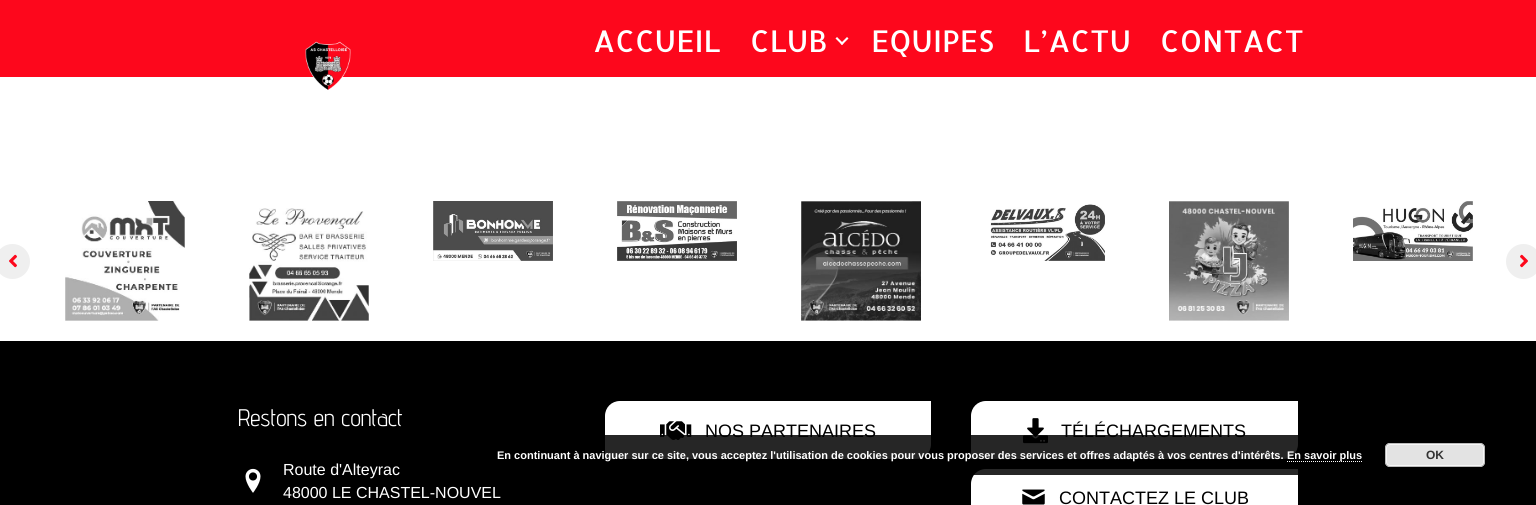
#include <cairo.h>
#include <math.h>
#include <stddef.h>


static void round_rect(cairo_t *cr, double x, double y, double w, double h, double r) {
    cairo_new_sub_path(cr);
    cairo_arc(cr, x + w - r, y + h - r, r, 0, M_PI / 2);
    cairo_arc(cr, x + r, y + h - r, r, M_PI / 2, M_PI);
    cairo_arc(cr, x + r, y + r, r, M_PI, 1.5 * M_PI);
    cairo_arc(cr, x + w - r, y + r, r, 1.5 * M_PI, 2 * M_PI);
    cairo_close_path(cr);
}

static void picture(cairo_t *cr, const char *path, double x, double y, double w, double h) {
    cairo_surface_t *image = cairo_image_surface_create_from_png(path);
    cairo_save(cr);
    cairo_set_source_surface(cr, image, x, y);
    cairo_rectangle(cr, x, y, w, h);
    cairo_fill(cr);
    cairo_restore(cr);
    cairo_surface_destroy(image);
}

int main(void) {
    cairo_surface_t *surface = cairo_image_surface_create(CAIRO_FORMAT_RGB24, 1536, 505);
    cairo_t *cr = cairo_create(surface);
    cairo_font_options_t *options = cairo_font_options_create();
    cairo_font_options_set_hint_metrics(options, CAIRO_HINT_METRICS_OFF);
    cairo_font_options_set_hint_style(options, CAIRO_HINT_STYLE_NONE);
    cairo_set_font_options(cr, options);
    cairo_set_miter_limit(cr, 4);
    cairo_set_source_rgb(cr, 1, 1, 1);
    cairo_paint(cr);
    cairo_set_source_rgb(cr, 0.992, 0.031, 0.11);
    cairo_rectangle(cr, 0, 0, 1536, 77);
    cairo_fill(cr);
    picture(cr, "img1.png", 305, 41, 46, 49);
    cairo_select_font_face(cr, "Allerta", CAIRO_FONT_SLANT_NORMAL, CAIRO_FONT_WEIGHT_NORMAL);
    cairo_set_font_size(cr, 30);
    cairo_set_source_rgb(cr, 1, 1, 1);
    cairo_move_to(cr, 593, 52);
    cairo_show_text(cr, "ACCUEIL");
    cairo_move_to(cr, 750, 52);
    cairo_show_text(cr, "CLUB");
    cairo_new_path(cr);
    cairo_move_to(cr, 847, 37);
    cairo_line_to(cr, 848.5, 38.5);
    cairo_line_to(cr, 842, 45);
    cairo_line_to(cr, 840.5, 43.5);
    cairo_close_path(cr);
    cairo_fill(cr);
    cairo_new_path(cr);
    cairo_move_to(cr, 837, 37);
    cairo_line_to(cr, 843.5, 43.5);
    cairo_line_to(cr, 842, 45);
    cairo_line_to(cr, 835.5, 38.5);
    cairo_close_path(cr);
    cairo_fill(cr);
    cairo_move_to(cr, 871, 52);
    cairo_show_text(cr, "EQUIPES");
    cairo_move_to(cr, 1023, 52);
    cairo_show_text(cr, "L’ACTU");
    cairo_move_to(cr, 1160, 52);
    cairo_show_text(cr, "CONTACT");
    cairo_set_source_rgb(cr, 0.937, 0.937, 0.937);
    cairo_new_path(cr);
    cairo_arc(cr, 12.5, 261.5, 17.5, 0, 2 * M_PI);
    cairo_fill(cr);
    picture(cr, "img2.png", 9, 254, 8, 14);
    picture(cr, "img3.png", 65, 201, 120, 120);
    picture(cr, "img4.png", 249, 208, 120, 113);
    picture(cr, "img5.png", 433, 201, 120, 60);
    picture(cr, "img6.png", 617, 201, 120, 60);
    picture(cr, "img7.png", 801, 201, 120, 120);
    picture(cr, "img8.png", 990, 204, 115, 57);
    picture(cr, "img9.png", 1169, 201, 120, 120);
    picture(cr, "img10.png", 1353, 201, 120, 60);
    cairo_arc(cr, 1523.5, 261.5, 17.5, 0, 2 * M_PI);
    cairo_fill(cr);
    picture(cr, "img11.png", 1520, 254, 8, 14);
    cairo_set_source_rgb(cr, 0, 0, 0);
    cairo_rectangle(cr, 0, 341, 1536, 164);
    cairo_fill(cr);
    cairo_select_font_face(cr, "Advent Pro", CAIRO_FONT_SLANT_NORMAL, CAIRO_FONT_WEIGHT_NORMAL);
    cairo_set_font_size(cr, 24);
    cairo_set_source_rgb(cr, 1, 1, 1);
    cairo_move_to(cr, 238, 426);
    cairo_show_text(cr, "Restons en contact");
    picture(cr, "img12.png", 245, 468, 16, 25);
    cairo_select_font_face(cr, "Liberation Sans", CAIRO_FONT_SLANT_NORMAL, CAIRO_FONT_WEIGHT_NORMAL);
    cairo_set_font_size(cr, 16);
    cairo_move_to(cr, 283, 475);
    cairo_show_text(cr, "Route d'Alteyrac");
    cairo_move_to(cr, 283, 498);
    cairo_show_text(cr, "48000 LE CHASTEL-NOUVEL");
    cairo_new_path(cr);
    cairo_move_to(cr, 620, 401);
    cairo_line_to(cr, 931, 401);
    cairo_line_to(cr, 931, 444);
    cairo_curve_to(cr, 931, 452.5, 924.5, 459, 916, 459);
    cairo_line_to(cr, 605, 459);
    cairo_line_to(cr, 605, 416);
    cairo_curve_to(cr, 605, 407.5, 611.5, 401, 620, 401);
    cairo_close_path(cr);
    cairo_fill(cr);
    picture(cr, "img13.png", 660, 421, 32, 19);
    cairo_set_font_size(cr, 18);
    cairo_set_source_rgb(cr, 0, 0, 0);
    cairo_move_to(cr, 705, 437);
    cairo_show_text(cr, "NOS PARTENAIRES");
    cairo_set_source_rgb(cr, 1, 1, 1);
    cairo_new_path(cr);
    cairo_move_to(cr, 986, 401);
    cairo_line_to(cr, 1298, 401);
    cairo_line_to(cr, 1298, 444);
    cairo_curve_to(cr, 1298, 452.5, 1291.5, 459, 1283, 459);
    cairo_line_to(cr, 971, 459);
    cairo_line_to(cr, 971, 416);
    cairo_curve_to(cr, 971, 407.5, 977.5, 401, 986, 401);
    cairo_close_path(cr);
    cairo_fill(cr);
    picture(cr, "img14.png", 1023, 418, 25, 26);
    cairo_set_source_rgb(cr, 0, 0, 0);
    cairo_move_to(cr, 1061, 437);
    cairo_show_text(cr, "TÉLÉCHARGEMENTS");
    cairo_set_source_rgb(cr, 1, 1, 1);
    cairo_new_path(cr);
    cairo_move_to(cr, 986, 469);
    cairo_line_to(cr, 1298, 469);
    cairo_line_to(cr, 1298, 505);
    cairo_curve_to(cr, 1298, 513.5, 1291.5, 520, 1283, 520);
    cairo_line_to(cr, 971, 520);
    cairo_line_to(cr, 971, 484);
    cairo_curve_to(cr, 971, 475.5, 977.5, 469, 986, 469);
    cairo_close_path(cr);
    cairo_fill(cr);
    picture(cr, "img15.png", 1022, 489, 23, 16);
    cairo_set_source_rgb(cr, 0, 0, 0);
    cairo_move_to(cr, 1059, 504);
    cairo_show_text(cr, "CONTACTEZ LE CLUB");
    cairo_set_source_rgba(cr, 0, 0, 0, 0.85);
    round_rect(cr, 476, 435, 1030, 40, 5);
    cairo_fill(cr);
    cairo_select_font_face(cr, "Liberation Sans", CAIRO_FONT_SLANT_NORMAL, CAIRO_FONT_WEIGHT_BOLD);
    cairo_set_font_size(cr, 11);
    cairo_set_source_rgb(cr, 1, 1, 1);
    cairo_move_to(cr, 497, 459);
    cairo_show_text(cr, "En continuant à naviguer sur ce site, vous acceptez l'utilisation de cookies pour vous proposer des services et offres adaptés à vos centres d'intérêts.");
    cairo_new_path(cr);
    cairo_move_to(cr, 1287, 461.5);
    cairo_line_to(cr, 1362, 461.5);
    cairo_set_line_width(cr, 1);
    cairo_set_dash(cr, (double[]){1, 1}, 2, 0);
    cairo_stroke(cr);
    cairo_move_to(cr, 1287, 459);
    cairo_show_text(cr, "En savoir plus");
    cairo_set_source_rgb(cr, 0.89, 0.89, 0.89);
    round_rect(cr, 1385, 443, 100, 24, 5);
    cairo_fill(cr);
    round_rect(cr, 1386.5, 444.5, 97, 21, 3.5);
    cairo_set_source_rgb(cr, 0.965, 0.965, 0.965);
    cairo_set_dash(cr, NULL, 0, 0);
    cairo_stroke(cr);
    round_rect(cr, 1385.5, 443.5, 99, 23, 4.5);
    cairo_set_source_rgb(cr, 0.733, 0.733, 0.733);
    cairo_stroke(cr);
    cairo_set_font_size(cr, 12);
    cairo_set_source_rgb(cr, 0.2, 0.2, 0.2);
    cairo_move_to(cr, 1426, 459);
    cairo_show_text(cr, "OK");
    cairo_surface_write_to_png(surface, "page.png");
    cairo_font_options_destroy(options);
    cairo_destroy(cr);
    cairo_surface_destroy(surface);
    return 0;
}
